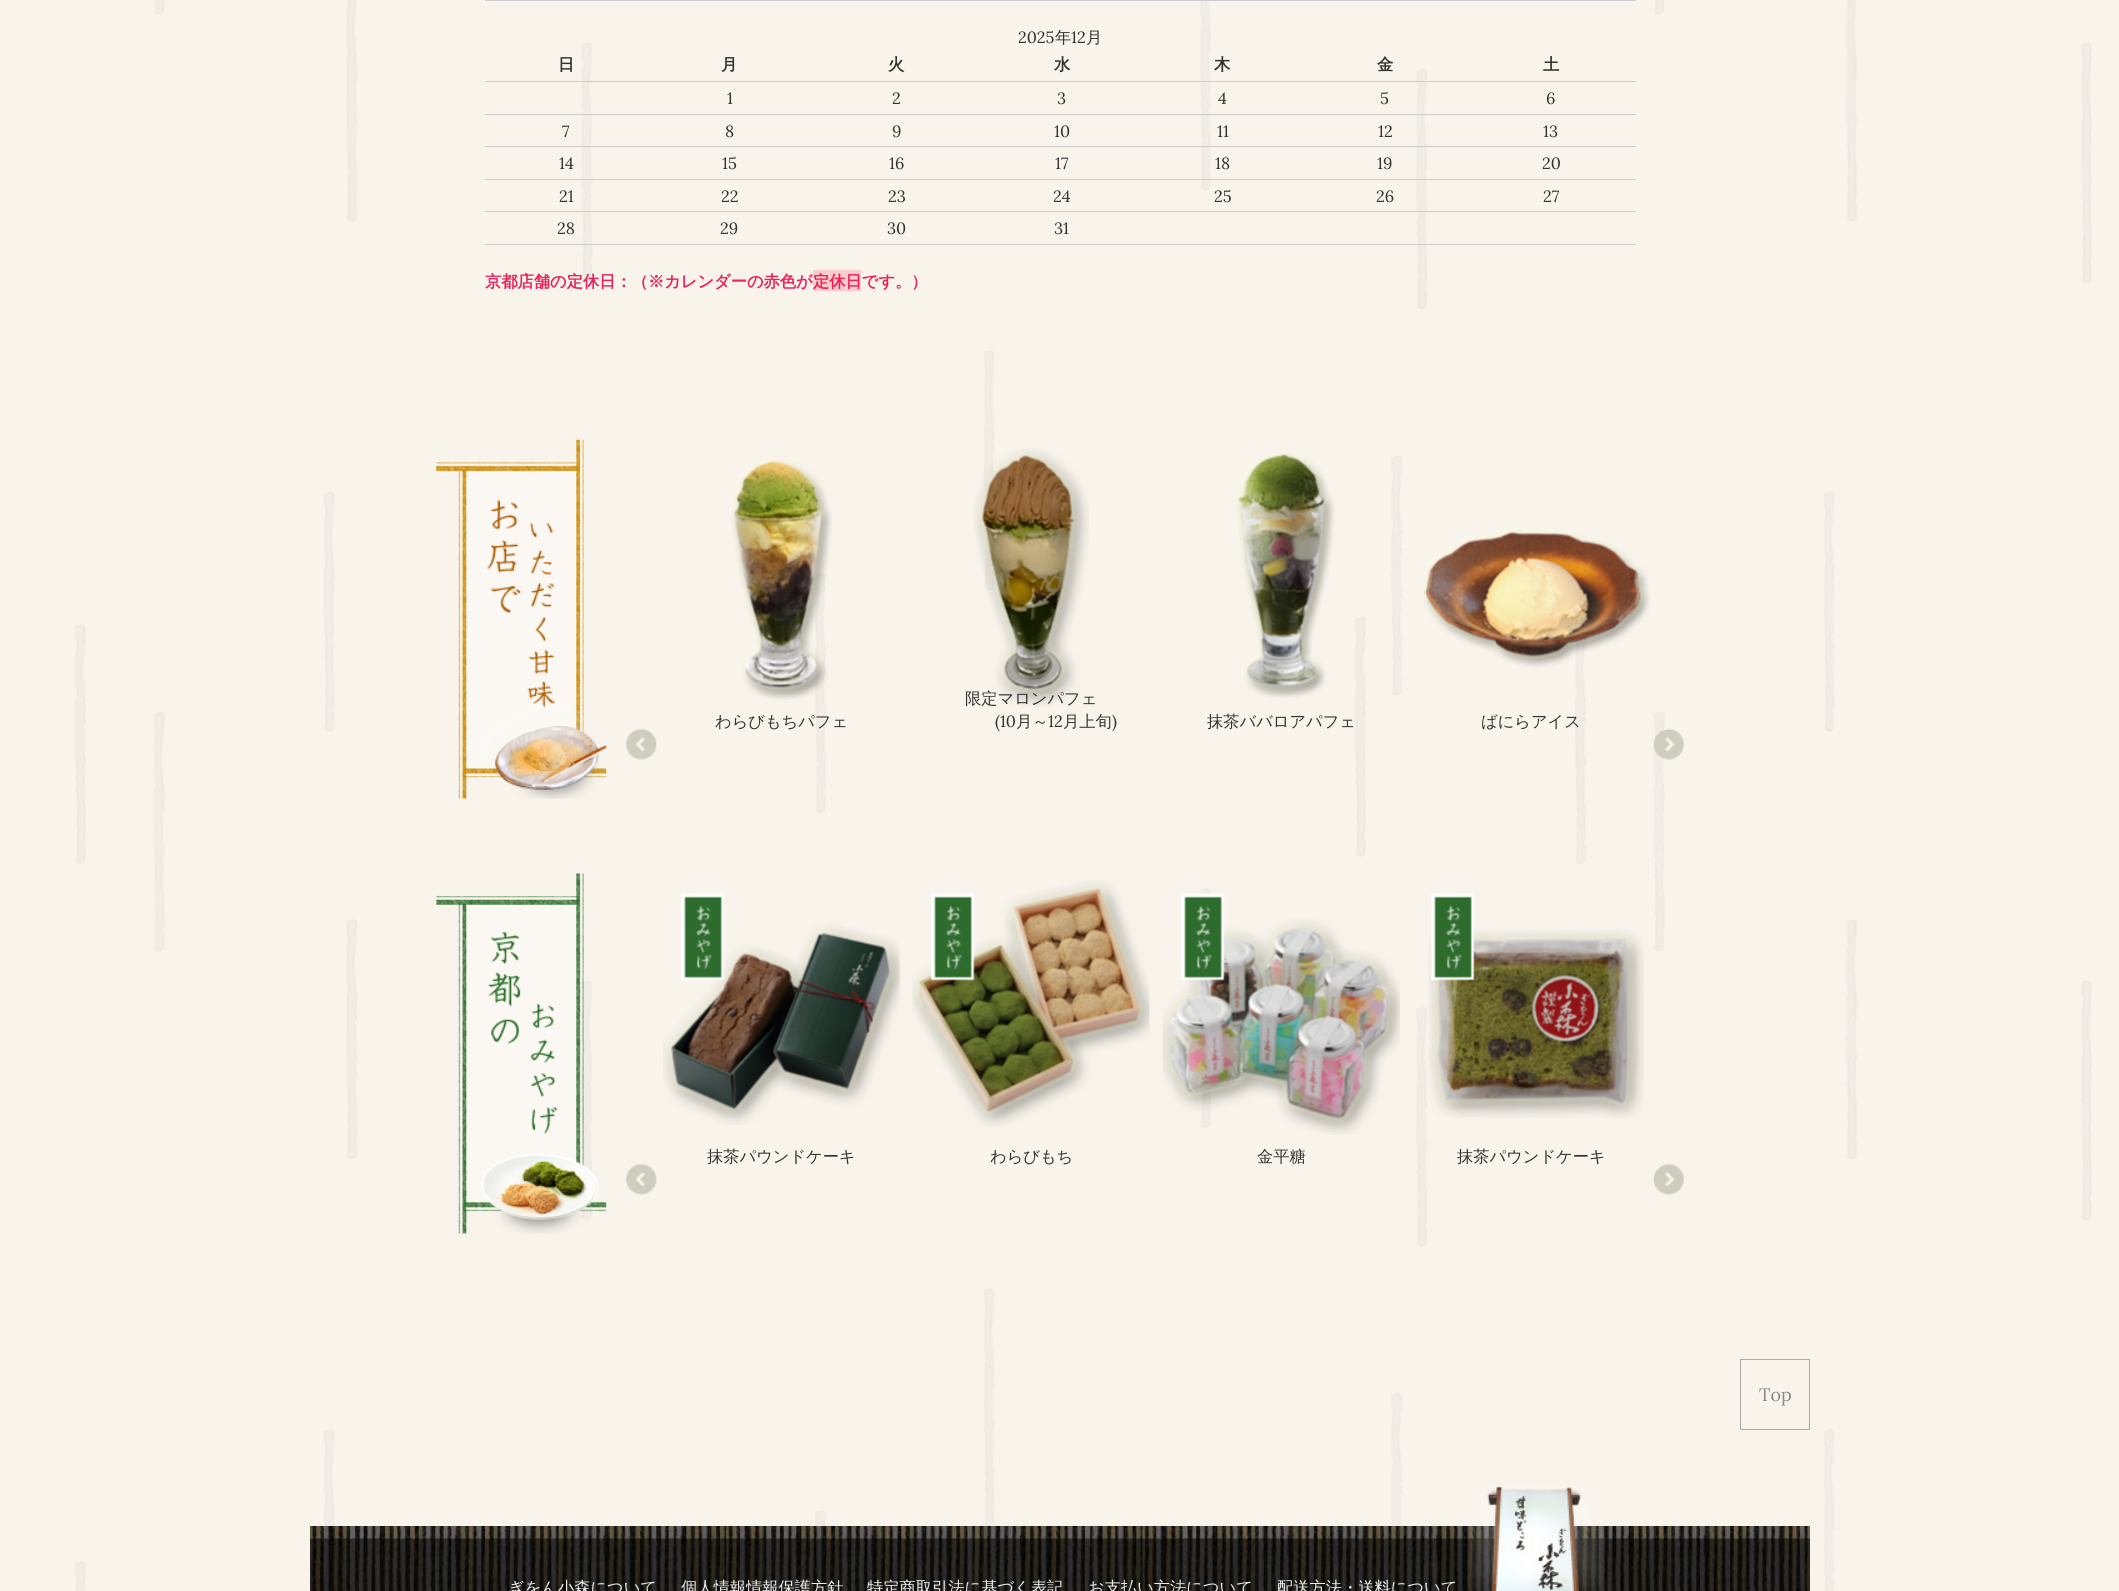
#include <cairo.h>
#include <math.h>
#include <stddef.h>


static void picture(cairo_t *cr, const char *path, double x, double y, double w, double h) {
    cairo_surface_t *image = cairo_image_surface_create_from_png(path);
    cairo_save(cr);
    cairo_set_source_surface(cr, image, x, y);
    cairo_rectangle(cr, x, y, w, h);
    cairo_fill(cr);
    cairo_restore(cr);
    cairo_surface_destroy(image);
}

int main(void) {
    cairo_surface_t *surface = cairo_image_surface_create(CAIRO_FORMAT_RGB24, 2119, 1591);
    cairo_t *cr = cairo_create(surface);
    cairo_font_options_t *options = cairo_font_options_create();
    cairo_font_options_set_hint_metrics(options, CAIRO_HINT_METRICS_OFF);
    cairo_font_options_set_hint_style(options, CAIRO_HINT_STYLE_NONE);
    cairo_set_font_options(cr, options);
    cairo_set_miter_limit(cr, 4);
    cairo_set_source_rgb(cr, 0.969, 0.957, 0.925);
    cairo_paint(cr);
    picture(cr, "img1.png", 75, 0, 2017, 1591);
    cairo_set_source_rgb(cr, 0.8, 0.8, 0.8);
    cairo_rectangle(cr, 485, 0, 1151, 1);
    cairo_fill(cr);
    cairo_select_font_face(cr, "Lora", CAIRO_FONT_SLANT_NORMAL, CAIRO_FONT_WEIGHT_NORMAL);
    cairo_set_font_size(cr, 16.25);
    cairo_set_source_rgb(cr, 0.2, 0.2, 0.2);
    cairo_move_to(cr, 1018, 43);
    cairo_show_text(cr, "2025");
    cairo_select_font_face(cr, "WenQuanYi Zen Hei Medium", CAIRO_FONT_SLANT_NORMAL, CAIRO_FONT_WEIGHT_NORMAL);
    cairo_move_to(cr, 1055, 43);
    cairo_show_text(cr, "年");
    cairo_select_font_face(cr, "Lora", CAIRO_FONT_SLANT_NORMAL, CAIRO_FONT_WEIGHT_NORMAL);
    cairo_move_to(cr, 1071, 43);
    cairo_show_text(cr, "12");
    cairo_select_font_face(cr, "WenQuanYi Zen Hei Medium", CAIRO_FONT_SLANT_NORMAL, CAIRO_FONT_WEIGHT_NORMAL);
    cairo_move_to(cr, 1086, 43);
    cairo_show_text(cr, "月");
    cairo_select_font_face(cr, "WenQuanYi Zen Hei", CAIRO_FONT_SLANT_NORMAL, CAIRO_FONT_WEIGHT_BOLD);
    cairo_move_to(cr, 558, 70);
    cairo_show_text(cr, "日");
    cairo_move_to(cr, 721, 70);
    cairo_show_text(cr, "月");
    cairo_move_to(cr, 888, 70);
    cairo_show_text(cr, "火");
    cairo_move_to(cr, 1054, 70);
    cairo_show_text(cr, "水");
    cairo_move_to(cr, 1214, 70);
    cairo_show_text(cr, "木");
    cairo_move_to(cr, 1377, 70);
    cairo_show_text(cr, "金");
    cairo_set_source_rgb(cr, 0.8, 0.8, 0.8);
    cairo_rectangle(cr, 485, 81, 1151, 1);
    cairo_fill(cr);
    cairo_set_source_rgb(cr, 0.2, 0.2, 0.2);
    cairo_move_to(cr, 1543, 70);
    cairo_show_text(cr, "土");
    cairo_select_font_face(cr, "Lora", CAIRO_FONT_SLANT_NORMAL, CAIRO_FONT_WEIGHT_NORMAL);
    cairo_move_to(cr, 727, 104);
    cairo_show_text(cr, "1");
    cairo_move_to(cr, 892, 104);
    cairo_show_text(cr, "2");
    cairo_move_to(cr, 1057, 104);
    cairo_show_text(cr, "3");
    cairo_move_to(cr, 1218, 104);
    cairo_show_text(cr, "4");
    cairo_move_to(cr, 1380, 104);
    cairo_show_text(cr, "5");
    cairo_set_source_rgb(cr, 0.8, 0.8, 0.8);
    cairo_rectangle(cr, 485, 114, 1151, 1);
    cairo_fill(cr);
    cairo_set_source_rgb(cr, 0.2, 0.2, 0.2);
    cairo_move_to(cr, 1546, 104);
    cairo_show_text(cr, "6");
    cairo_move_to(cr, 562, 137);
    cairo_show_text(cr, "7");
    cairo_move_to(cr, 725, 137);
    cairo_show_text(cr, "8");
    cairo_move_to(cr, 892, 137);
    cairo_show_text(cr, "9");
    cairo_move_to(cr, 1054, 137);
    cairo_show_text(cr, "10");
    cairo_move_to(cr, 1217, 137);
    cairo_show_text(cr, "11");
    cairo_move_to(cr, 1378, 137);
    cairo_show_text(cr, "12");
    cairo_set_source_rgb(cr, 0.8, 0.8, 0.8);
    cairo_rectangle(cr, 485, 146, 1151, 1);
    cairo_fill(cr);
    cairo_set_source_rgb(cr, 0.2, 0.2, 0.2);
    cairo_move_to(cr, 1543, 137);
    cairo_show_text(cr, "13");
    cairo_move_to(cr, 559, 169);
    cairo_show_text(cr, "14");
    cairo_move_to(cr, 722, 169);
    cairo_show_text(cr, "15");
    cairo_move_to(cr, 889, 169);
    cairo_show_text(cr, "16");
    cairo_move_to(cr, 1055, 169);
    cairo_show_text(cr, "17");
    cairo_move_to(cr, 1215, 169);
    cairo_show_text(cr, "18");
    cairo_move_to(cr, 1377, 169);
    cairo_show_text(cr, "19");
    cairo_set_source_rgb(cr, 0.8, 0.8, 0.8);
    cairo_rectangle(cr, 485, 179, 1151, 1);
    cairo_fill(cr);
    cairo_set_source_rgb(cr, 0.2, 0.2, 0.2);
    cairo_move_to(cr, 1542, 169);
    cairo_show_text(cr, "20");
    cairo_move_to(cr, 559, 202);
    cairo_show_text(cr, "21");
    cairo_move_to(cr, 721, 202);
    cairo_show_text(cr, "22");
    cairo_move_to(cr, 888, 202);
    cairo_show_text(cr, "23");
    cairo_move_to(cr, 1053, 202);
    cairo_show_text(cr, "24");
    cairo_move_to(cr, 1214, 202);
    cairo_show_text(cr, "25");
    cairo_move_to(cr, 1376, 202);
    cairo_show_text(cr, "26");
    cairo_set_source_rgb(cr, 0.8, 0.8, 0.8);
    cairo_rectangle(cr, 485, 211, 1151, 1);
    cairo_fill(cr);
    cairo_set_source_rgb(cr, 0.2, 0.2, 0.2);
    cairo_move_to(cr, 1543, 202);
    cairo_show_text(cr, "27");
    cairo_move_to(cr, 557, 234);
    cairo_show_text(cr, "28");
    cairo_move_to(cr, 720, 234);
    cairo_show_text(cr, "29");
    cairo_move_to(cr, 887, 234);
    cairo_show_text(cr, "30");
    cairo_move_to(cr, 1054, 234);
    cairo_show_text(cr, "31");
    cairo_set_source_rgb(cr, 0.8, 0.8, 0.8);
    cairo_rectangle(cr, 485, 244, 1151, 1);
    cairo_fill(cr);
    cairo_select_font_face(cr, "WenQuanYi Zen Hei", CAIRO_FONT_SLANT_NORMAL, CAIRO_FONT_WEIGHT_BOLD);
    cairo_set_source_rgb(cr, 0.922, 0.129, 0.353);
    cairo_move_to(cr, 485, 287);
    cairo_show_text(cr, "京都店舗の定休日：（※カレンダーの赤色が");
    cairo_set_source_rgb(cr, 1, 0.8, 0.8);
    cairo_rectangle(cr, 813, 270, 48, 21);
    cairo_fill(cr);
    cairo_set_source_rgb(cr, 0.922, 0.129, 0.353);
    cairo_move_to(cr, 813, 287);
    cairo_show_text(cr, "定休日です。）");
    picture(cr, "img2.png", 436, 439, 171, 360);
    picture(cr, "img3.png", 730, 457, 102, 243);
    cairo_select_font_face(cr, "WenQuanYi Zen Hei Medium", CAIRO_FONT_SLANT_NORMAL, CAIRO_FONT_WEIGHT_NORMAL);
    cairo_set_source_rgb(cr, 0.2, 0.2, 0.2);
    cairo_move_to(cr, 715, 727);
    cairo_show_text(cr, "わらびもちパフェ");
    picture(cr, "img4.png", 973, 448, 116, 259);
    cairo_move_to(cr, 965, 704);
    cairo_show_text(cr, "限定マロンパフェ");
    cairo_select_font_face(cr, "Lora", CAIRO_FONT_SLANT_NORMAL, CAIRO_FONT_WEIGHT_NORMAL);
    cairo_move_to(cr, 995, 727);
    cairo_show_text(cr, "(10");
    cairo_select_font_face(cr, "WenQuanYi Zen Hei Medium", CAIRO_FONT_SLANT_NORMAL, CAIRO_FONT_WEIGHT_NORMAL);
    cairo_move_to(cr, 1016, 727);
    cairo_show_text(cr, "月～");
    cairo_select_font_face(cr, "Lora", CAIRO_FONT_SLANT_NORMAL, CAIRO_FONT_WEIGHT_NORMAL);
    cairo_move_to(cr, 1048, 727);
    cairo_show_text(cr, "12");
    cairo_select_font_face(cr, "WenQuanYi Zen Hei Medium", CAIRO_FONT_SLANT_NORMAL, CAIRO_FONT_WEIGHT_NORMAL);
    cairo_move_to(cr, 1063, 727);
    cairo_show_text(cr, "月上旬");
    cairo_select_font_face(cr, "Lora", CAIRO_FONT_SLANT_NORMAL, CAIRO_FONT_WEIGHT_NORMAL);
    cairo_move_to(cr, 1112, 727);
    cairo_show_text(cr, ")");
    picture(cr, "img5.png", 1235, 451, 100, 247);
    cairo_select_font_face(cr, "WenQuanYi Zen Hei Medium", CAIRO_FONT_SLANT_NORMAL, CAIRO_FONT_WEIGHT_NORMAL);
    cairo_move_to(cr, 1207, 727);
    cairo_show_text(cr, "抹茶ババロアパフェ");
    picture(cr, "img6.png", 1422, 529, 228, 138);
    cairo_move_to(cr, 1481, 727);
    cairo_show_text(cr, "ばにらアイス");
    picture(cr, "img7.png", 626, 728, 31, 32);
    picture(cr, "img8.png", 1653, 728, 31, 32);
    picture(cr, "img9.png", 436, 873, 171, 361);
    picture(cr, "img10.png", 663, 893, 238, 232);
    cairo_move_to(cr, 707, 1162);
    cairo_show_text(cr, "抹茶パウンドケーキ");
    picture(cr, "img11.png", 912, 880, 238, 247);
    cairo_move_to(cr, 990, 1162);
    cairo_show_text(cr, "わらびもち");
    picture(cr, "img12.png", 1162, 893, 238, 242);
    cairo_move_to(cr, 1257, 1162);
    cairo_show_text(cr, "金平糖");
    picture(cr, "img13.png", 1428, 893, 216, 225);
    cairo_move_to(cr, 1457, 1162);
    cairo_show_text(cr, "抹茶パウンドケーキ");
    picture(cr, "img7.png", 626, 1163, 31, 32);
    picture(cr, "img14.png", 1653, 1163, 31, 32);
    cairo_rectangle(cr, 1740.5, 1359.5, 69, 70);
    cairo_set_source_rgb(cr, 0.667, 0.667, 0.667);
    cairo_set_line_width(cr, 1);
    cairo_stroke(cr);
    cairo_select_font_face(cr, "Lora", CAIRO_FONT_SLANT_NORMAL, CAIRO_FONT_WEIGHT_NORMAL);
    cairo_set_font_size(cr, 18);
    cairo_set_source_rgb(cr, 0.533, 0.533, 0.533);
    cairo_move_to(cr, 1759, 1401);
    cairo_show_text(cr, "Top");
    picture(cr, "img15.png", 310, 1526, 1500, 65);
    cairo_select_font_face(cr, "WenQuanYi Zen Hei Medium", CAIRO_FONT_SLANT_NORMAL, CAIRO_FONT_WEIGHT_NORMAL);
    cairo_set_font_size(cr, 16.25);
    cairo_set_source_rgb(cr, 0.933, 0.933, 0.933);
    cairo_move_to(cr, 508, 1593);
    cairo_show_text(cr, "ぎをん小森について");
    cairo_move_to(cr, 681, 1593);
    cairo_show_text(cr, "個人情報情報保護方針");
    cairo_move_to(cr, 867, 1593);
    cairo_show_text(cr, "特定商取引法に基づく表記");
    cairo_move_to(cr, 1088, 1593);
    cairo_show_text(cr, "お支払い方法について");
    cairo_move_to(cr, 1277, 1593);
    cairo_show_text(cr, "配送方法・送料について");
    picture(cr, "img16.png", 1467, 1486, 138, 105);
    cairo_surface_write_to_png(surface, "page.png");
    cairo_font_options_destroy(options);
    cairo_destroy(cr);
    cairo_surface_destroy(surface);
    return 0;
}
